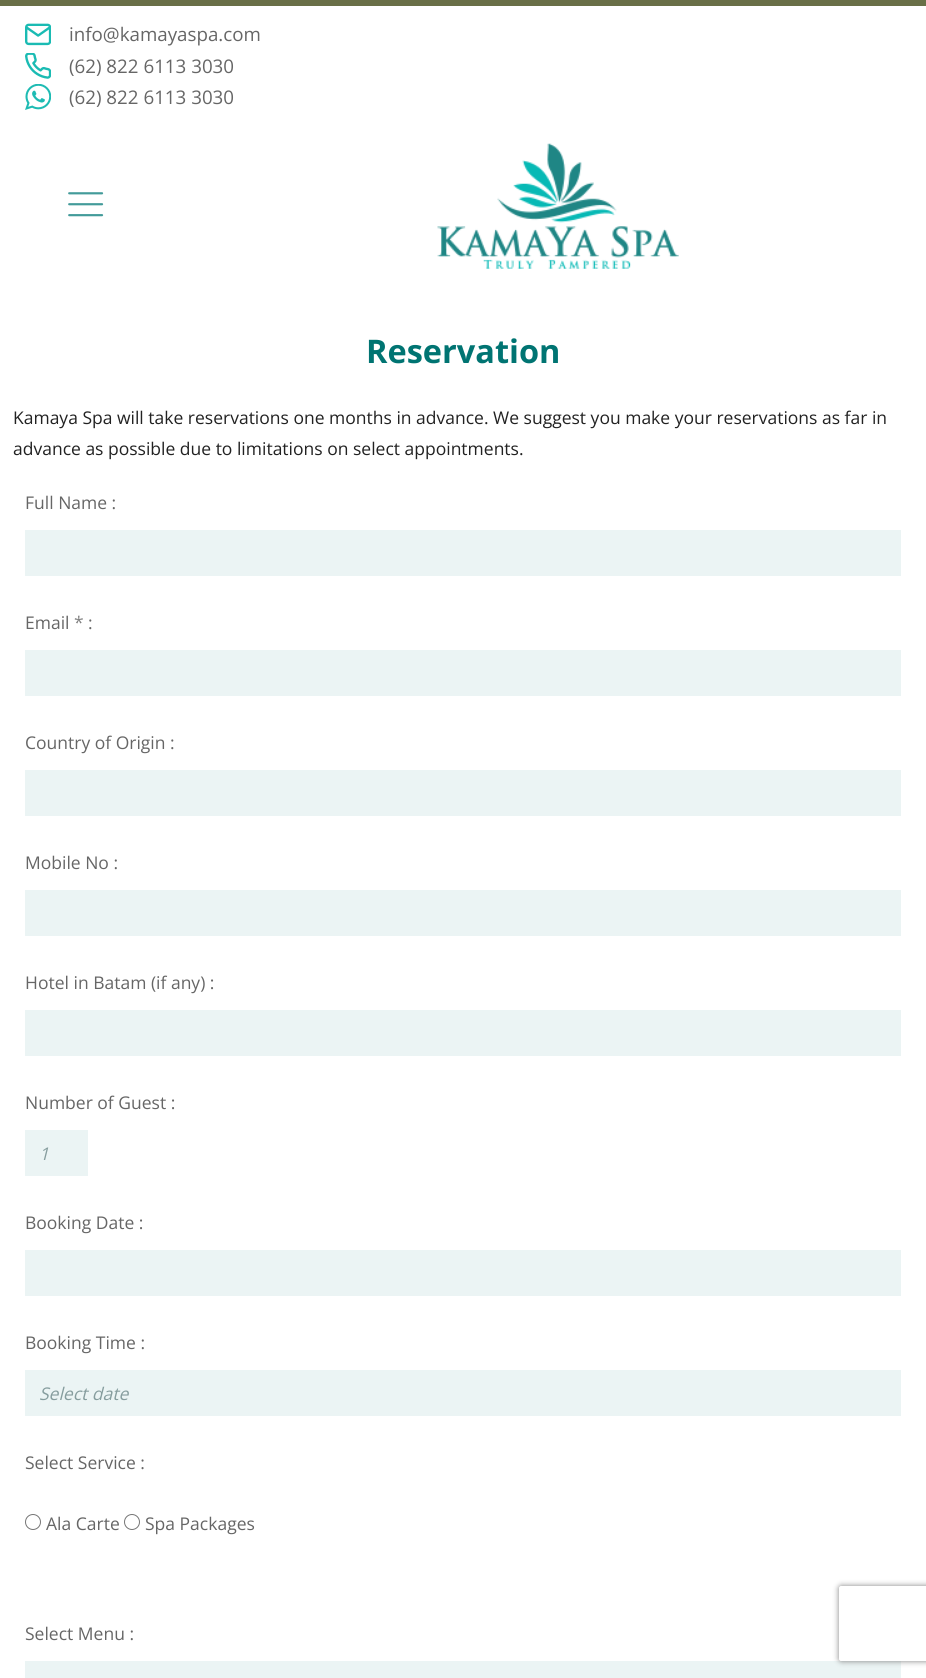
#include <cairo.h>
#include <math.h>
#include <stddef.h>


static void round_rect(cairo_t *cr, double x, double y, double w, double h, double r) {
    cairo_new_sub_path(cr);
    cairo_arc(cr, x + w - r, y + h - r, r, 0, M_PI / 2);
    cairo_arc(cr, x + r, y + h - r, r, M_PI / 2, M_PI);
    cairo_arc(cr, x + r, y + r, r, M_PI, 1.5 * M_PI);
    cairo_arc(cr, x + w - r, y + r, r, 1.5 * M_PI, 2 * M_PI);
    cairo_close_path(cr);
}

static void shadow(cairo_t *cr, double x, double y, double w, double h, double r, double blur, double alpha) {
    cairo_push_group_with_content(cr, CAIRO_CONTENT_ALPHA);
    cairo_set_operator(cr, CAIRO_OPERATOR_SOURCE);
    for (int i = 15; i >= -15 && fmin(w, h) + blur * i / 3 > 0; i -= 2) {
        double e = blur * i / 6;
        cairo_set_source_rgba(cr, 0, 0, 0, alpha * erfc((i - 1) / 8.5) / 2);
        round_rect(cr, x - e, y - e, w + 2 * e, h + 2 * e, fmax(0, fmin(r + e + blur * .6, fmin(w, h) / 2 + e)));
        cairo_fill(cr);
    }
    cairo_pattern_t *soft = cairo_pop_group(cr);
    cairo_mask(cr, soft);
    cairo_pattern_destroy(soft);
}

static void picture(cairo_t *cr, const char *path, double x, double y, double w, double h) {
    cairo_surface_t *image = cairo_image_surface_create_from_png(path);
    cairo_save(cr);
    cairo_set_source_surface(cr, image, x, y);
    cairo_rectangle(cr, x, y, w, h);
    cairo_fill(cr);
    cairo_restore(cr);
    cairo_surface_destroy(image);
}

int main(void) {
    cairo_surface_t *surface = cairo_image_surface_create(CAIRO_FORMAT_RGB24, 926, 1678);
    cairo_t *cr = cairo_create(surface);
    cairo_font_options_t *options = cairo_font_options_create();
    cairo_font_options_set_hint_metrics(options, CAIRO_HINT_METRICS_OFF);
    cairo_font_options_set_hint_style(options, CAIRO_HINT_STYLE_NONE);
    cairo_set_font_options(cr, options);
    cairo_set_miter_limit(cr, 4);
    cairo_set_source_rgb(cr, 1, 1, 1);
    cairo_paint(cr);
    cairo_set_source_rgb(cr, 0.412, 0.435, 0.278);
    cairo_rectangle(cr, 0, 0, 926, 6);
    cairo_fill(cr);
    picture(cr, "img1.png", 25, 23, 26, 23);
    cairo_select_font_face(cr, "Open Sans", CAIRO_FONT_SLANT_NORMAL, CAIRO_FONT_WEIGHT_NORMAL);
    cairo_set_font_size(cr, 18.75);
    cairo_set_source_rgb(cr, 0.4, 0.4, 0.4);
    cairo_move_to(cr, 69, 41);
    cairo_show_text(cr, "info@kamayaspa.com");
    picture(cr, "img2.png", 25, 53, 26, 26);
    cairo_move_to(cr, 69, 73);
    cairo_show_text(cr, "(62) 822 6113 3030");
    picture(cr, "img3.png", 25, 84, 26, 26);
    cairo_move_to(cr, 69, 104);
    cairo_show_text(cr, "(62) 822 6113 3030");
    picture(cr, "img4.png", 68, 192, 36, 25);
    picture(cr, "img5.png", 437, 143, 242, 126);
    cairo_select_font_face(cr, "Open Sans", CAIRO_FONT_SLANT_NORMAL, CAIRO_FONT_WEIGHT_BOLD);
    cairo_set_font_size(cr, 32.5);
    cairo_set_source_rgb(cr, 0, 0.455, 0.447);
    cairo_move_to(cr, 366, 363);
    cairo_show_text(cr, "Reservation");
    cairo_select_font_face(cr, "Open Sans", CAIRO_FONT_SLANT_NORMAL, CAIRO_FONT_WEIGHT_NORMAL);
    cairo_set_font_size(cr, 17.5);
    cairo_set_source_rgb(cr, 0.133, 0.133, 0.133);
    cairo_move_to(cr, 13, 424);
    cairo_show_text(cr, "Kamaya Spa will take reservations one months in advance. We suggest you make your reservations as far in");
    cairo_move_to(cr, 13, 455);
    cairo_show_text(cr, "advance as possible due to limitations on select appointments.");
    cairo_set_source_rgb(cr, 0.4, 0.4, 0.4);
    cairo_move_to(cr, 25, 509);
    cairo_show_text(cr, "Full Name :");
    cairo_set_source_rgb(cr, 0.918, 0.957, 0.957);
    cairo_rectangle(cr, 25, 530, 876, 46);
    cairo_fill(cr);
    cairo_set_source_rgb(cr, 0.4, 0.4, 0.4);
    cairo_move_to(cr, 25, 629);
    cairo_show_text(cr, "Email");
    cairo_set_source_rgb(cr, 0.502, 0.502, 0.502);
    cairo_move_to(cr, 74, 629);
    cairo_show_text(cr, "*");
    cairo_set_source_rgb(cr, 0.4, 0.4, 0.4);
    cairo_move_to(cr, 88, 629);
    cairo_show_text(cr, ":");
    cairo_set_source_rgb(cr, 0.918, 0.957, 0.957);
    cairo_rectangle(cr, 25, 650, 876, 46);
    cairo_fill(cr);
    cairo_set_source_rgb(cr, 0.4, 0.4, 0.4);
    cairo_move_to(cr, 25, 749);
    cairo_show_text(cr, "Country of Origin :");
    cairo_set_source_rgb(cr, 0.918, 0.957, 0.957);
    cairo_rectangle(cr, 25, 770, 876, 46);
    cairo_fill(cr);
    cairo_set_source_rgb(cr, 0.4, 0.4, 0.4);
    cairo_move_to(cr, 25, 869);
    cairo_show_text(cr, "Mobile No :");
    cairo_set_source_rgb(cr, 0.918, 0.957, 0.957);
    cairo_rectangle(cr, 25, 890, 876, 46);
    cairo_fill(cr);
    cairo_set_source_rgb(cr, 0.4, 0.4, 0.4);
    cairo_move_to(cr, 25, 989);
    cairo_show_text(cr, "Hotel in Batam (if any) :");
    cairo_set_source_rgb(cr, 0.918, 0.957, 0.957);
    cairo_rectangle(cr, 25, 1010, 876, 46);
    cairo_fill(cr);
    cairo_set_source_rgb(cr, 0.4, 0.4, 0.4);
    cairo_move_to(cr, 25, 1109);
    cairo_show_text(cr, "Number of Guest :");
    cairo_set_source_rgb(cr, 0.918, 0.957, 0.957);
    cairo_rectangle(cr, 25, 1130, 63, 46);
    cairo_fill(cr);
    cairo_select_font_face(cr, "Open Sans", CAIRO_FONT_SLANT_ITALIC, CAIRO_FONT_WEIGHT_NORMAL);
    cairo_set_source_rgb(cr, 0.525, 0.616, 0.62);
    cairo_move_to(cr, 39, 1160);
    cairo_show_text(cr, "1");
    cairo_select_font_face(cr, "Open Sans", CAIRO_FONT_SLANT_NORMAL, CAIRO_FONT_WEIGHT_NORMAL);
    cairo_set_source_rgb(cr, 0.4, 0.4, 0.4);
    cairo_move_to(cr, 25, 1229);
    cairo_show_text(cr, "Booking Date :");
    cairo_set_source_rgb(cr, 0.918, 0.957, 0.957);
    cairo_rectangle(cr, 25, 1250, 876, 46);
    cairo_fill(cr);
    cairo_set_source_rgb(cr, 0.4, 0.4, 0.4);
    cairo_move_to(cr, 25, 1349);
    cairo_show_text(cr, "Booking Time :");
    cairo_set_source_rgb(cr, 0.918, 0.957, 0.957);
    cairo_rectangle(cr, 25, 1370, 876, 46);
    cairo_fill(cr);
    cairo_select_font_face(cr, "Open Sans", CAIRO_FONT_SLANT_ITALIC, CAIRO_FONT_WEIGHT_NORMAL);
    cairo_set_source_rgb(cr, 0.525, 0.616, 0.62);
    cairo_move_to(cr, 39, 1400);
    cairo_show_text(cr, "Select date");
    cairo_select_font_face(cr, "Open Sans", CAIRO_FONT_SLANT_NORMAL, CAIRO_FONT_WEIGHT_NORMAL);
    cairo_set_source_rgb(cr, 0.4, 0.4, 0.4);
    cairo_move_to(cr, 25, 1469);
    cairo_show_text(cr, "Select Service :");
    cairo_new_path(cr);
    cairo_arc(cr, 33, 1522, 7.5, 0, 2 * M_PI);
    cairo_set_source_rgb(cr, 0.463, 0.463, 0.463);
    cairo_set_line_width(cr, 1);
    cairo_stroke(cr);
    cairo_set_source_rgb(cr, 0.4, 0.4, 0.4);
    cairo_move_to(cr, 46, 1530);
    cairo_show_text(cr, "Ala Carte");
    cairo_new_path(cr);
    cairo_arc(cr, 132, 1522, 7.5, 0, 2 * M_PI);
    cairo_set_source_rgb(cr, 0.463, 0.463, 0.463);
    cairo_stroke(cr);
    cairo_set_source_rgb(cr, 0.4, 0.4, 0.4);
    cairo_move_to(cr, 145, 1530);
    cairo_show_text(cr, "Spa Packages");
    cairo_move_to(cr, 25, 1640);
    cairo_show_text(cr, "Select Menu :");
    cairo_set_source_rgb(cr, 0.918, 0.957, 0.957);
    cairo_rectangle(cr, 25, 1661, 876, 17);
    cairo_fill(cr);
    cairo_save(cr);
    cairo_set_fill_rule(cr, CAIRO_FILL_RULE_EVEN_ODD);
    cairo_new_path(cr);
    cairo_move_to(cr, 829, 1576);
    cairo_line_to(cr, 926, 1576);
    cairo_line_to(cr, 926, 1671);
    cairo_line_to(cr, 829, 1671);
    cairo_close_path(cr);
    cairo_move_to(cr, 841.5, 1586);
    cairo_line_to(cr, 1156.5, 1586);
    cairo_curve_to(cr, 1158, 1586, 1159, 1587, 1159, 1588.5);
    cairo_line_to(cr, 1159, 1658.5);
    cairo_curve_to(cr, 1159, 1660, 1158, 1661, 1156.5, 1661);
    cairo_line_to(cr, 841.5, 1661);
    cairo_curve_to(cr, 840, 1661, 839, 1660, 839, 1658.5);
    cairo_line_to(cr, 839, 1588.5);
    cairo_curve_to(cr, 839, 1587, 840, 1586, 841.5, 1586);
    cairo_close_path(cr);
    cairo_clip(cr);
    cairo_set_source_rgb(cr, 0.502, 0.502, 0.502);
    shadow(cr, 839, 1586, 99, 75, 2.5, 3, 1);
    cairo_restore(cr);
    cairo_surface_write_to_png(surface, "page.png");
    cairo_font_options_destroy(options);
    cairo_destroy(cr);
    cairo_surface_destroy(surface);
    return 0;
}
